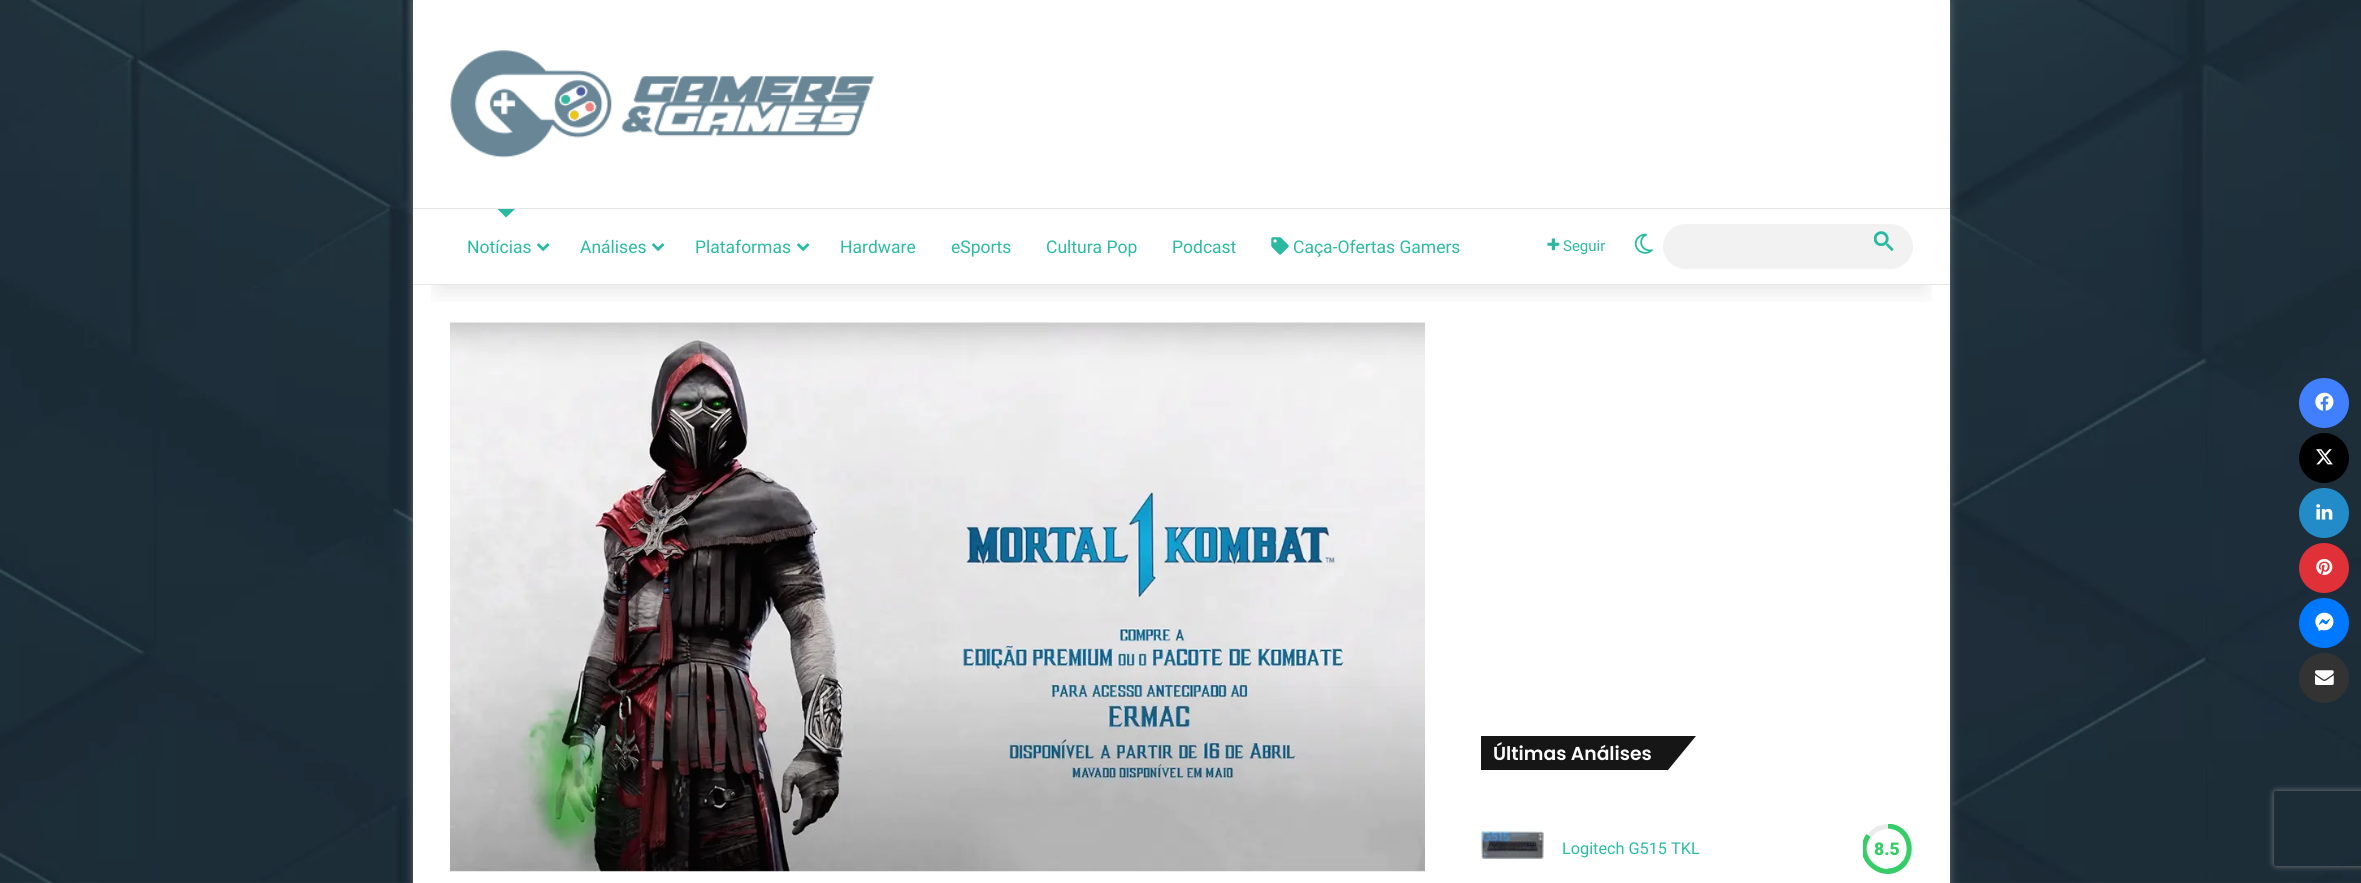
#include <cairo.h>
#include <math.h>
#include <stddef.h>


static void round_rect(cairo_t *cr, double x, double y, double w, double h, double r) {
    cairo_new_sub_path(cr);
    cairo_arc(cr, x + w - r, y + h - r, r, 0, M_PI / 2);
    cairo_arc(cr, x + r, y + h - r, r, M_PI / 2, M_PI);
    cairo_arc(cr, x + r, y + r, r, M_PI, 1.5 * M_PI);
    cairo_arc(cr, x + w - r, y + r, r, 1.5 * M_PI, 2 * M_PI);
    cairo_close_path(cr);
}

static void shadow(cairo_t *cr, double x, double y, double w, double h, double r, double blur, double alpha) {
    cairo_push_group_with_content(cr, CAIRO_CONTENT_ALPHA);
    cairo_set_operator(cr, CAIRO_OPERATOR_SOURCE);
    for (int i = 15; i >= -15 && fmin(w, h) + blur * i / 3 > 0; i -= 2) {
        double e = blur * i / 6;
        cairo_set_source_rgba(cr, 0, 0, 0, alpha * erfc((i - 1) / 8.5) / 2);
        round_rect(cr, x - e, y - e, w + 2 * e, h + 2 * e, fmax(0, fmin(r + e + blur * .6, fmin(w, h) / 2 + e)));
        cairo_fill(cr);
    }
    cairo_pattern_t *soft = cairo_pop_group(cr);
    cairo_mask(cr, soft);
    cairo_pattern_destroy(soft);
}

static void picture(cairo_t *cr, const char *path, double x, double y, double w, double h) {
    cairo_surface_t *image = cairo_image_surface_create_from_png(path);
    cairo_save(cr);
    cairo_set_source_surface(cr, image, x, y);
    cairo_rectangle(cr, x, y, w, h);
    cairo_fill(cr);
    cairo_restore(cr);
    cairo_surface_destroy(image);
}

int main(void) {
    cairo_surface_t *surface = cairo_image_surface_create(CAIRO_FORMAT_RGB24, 2361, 883);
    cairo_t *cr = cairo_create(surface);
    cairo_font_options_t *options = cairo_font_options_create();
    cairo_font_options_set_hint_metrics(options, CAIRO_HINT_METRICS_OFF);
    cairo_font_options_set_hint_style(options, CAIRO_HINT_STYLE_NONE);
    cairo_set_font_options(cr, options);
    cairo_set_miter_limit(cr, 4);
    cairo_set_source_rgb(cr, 1, 1, 1);
    cairo_paint(cr);
    picture(cr, "img1.png", 0, 0, 2361, 883);
    cairo_set_source_rgb(cr, 0.671, 0.671, 0.671);
    shadow(cr, 413, 1, 1537, 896, 0, 4.5, 0.5);
    cairo_set_source_rgb(cr, 1, 1, 1);
    cairo_rectangle(cr, 413, 0, 1537, 883);
    cairo_fill(cr);
    picture(cr, "img14.png", 450, 322, 975, 550);
    cairo_save(cr);
    cairo_rectangle(cr, 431, 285, 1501, 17);
    cairo_clip(cr);
    cairo_set_source_rgb(cr, 0, 0, 0);
    shadow(cr, 438, 56, 1487, 235, 0, 12.5, 0.1);
    cairo_restore(cr);
    picture(cr, "img2.png", 450, 50, 424, 108);
    cairo_set_source_rgb(cr, 0.902, 0.902, 0.902);
    cairo_rectangle(cr, 413, 208, 1537, 1);
    cairo_fill(cr);
    cairo_rectangle(cr, 413, 284, 1537, 1);
    cairo_fill(cr);
    cairo_set_source_rgb(cr, 0.165, 0.729, 0.631);
    cairo_new_path(cr);
    cairo_move_to(cr, 497.5, 209);
    cairo_line_to(cr, 515, 209);
    cairo_line_to(cr, 506, 217.5);
    cairo_close_path(cr);
    cairo_fill(cr);
    cairo_select_font_face(cr, "Roboto", CAIRO_FONT_SLANT_NORMAL, CAIRO_FONT_WEIGHT_NORMAL);
    cairo_set_font_size(cr, 17.5);
    cairo_set_source_rgb(cr, 0.173, 0.733, 0.635);
    cairo_move_to(cr, 467, 253);
    cairo_show_text(cr, "Notícias");
    picture(cr, "img3.png", 537, 243, 13, 9);
    cairo_move_to(cr, 580, 253);
    cairo_show_text(cr, "Análises");
    picture(cr, "img3.png", 652, 243, 13, 9);
    cairo_move_to(cr, 695, 253);
    cairo_show_text(cr, "Plataformas");
    picture(cr, "img3.png", 797, 243, 13, 9);
    cairo_move_to(cr, 840, 253);
    cairo_show_text(cr, "Hardware");
    cairo_move_to(cr, 951, 253);
    cairo_show_text(cr, "eSports");
    cairo_move_to(cr, 1046, 253);
    cairo_show_text(cr, "Cultura Pop");
    cairo_move_to(cr, 1172, 253);
    cairo_show_text(cr, "Podcast");
    picture(cr, "img4.png", 1271, 237, 18, 18);
    cairo_move_to(cr, 1293, 253);
    cairo_show_text(cr, "Caça-Ofertas Gamers");
    picture(cr, "img5.png", 1547, 238, 13, 13);
    cairo_set_font_size(cr, 15);
    cairo_move_to(cr, 1563, 251);
    cairo_show_text(cr, "Seguir");
    picture(cr, "img6.png", 1634, 233, 19, 21);
    cairo_set_source_rgb(cr, 0.949, 0.949, 0.949);
    round_rect(cr, 1663, 224, 250, 45, 22.5);
    cairo_fill(cr);
    picture(cr, "img7.png", 1874, 231, 20, 20);
    cairo_set_source_rgb(cr, 0.251, 0.502, 1);
    cairo_arc(cr, 2324, 403, 25, 0, 2 * M_PI);
    cairo_fill(cr);
    picture(cr, "img8.png", 2315, 392, 19, 19);
    cairo_set_source_rgb(cr, 0, 0, 0);
    cairo_arc(cr, 2324, 458, 25, 0, 2 * M_PI);
    cairo_fill(cr);
    picture(cr, "img9.png", 2316, 449, 17, 16);
    cairo_set_source_rgb(cr, 0.137, 0.549, 0.784);
    cairo_arc(cr, 2324, 513, 25, 0, 2 * M_PI);
    cairo_fill(cr);
    picture(cr, "img10.png", 2316, 504, 17, 16);
    cairo_set_source_rgb(cr, 0.882, 0.192, 0.22);
    cairo_arc(cr, 2324, 568, 25, 0, 2 * M_PI);
    cairo_fill(cr);
    picture(cr, "img11.png", 2316, 558, 17, 17);
    cairo_set_source_rgb(cr, 0, 0.471, 1);
    cairo_arc(cr, 2324, 623, 25, 0, 2 * M_PI);
    cairo_fill(cr);
    picture(cr, "img12.png", 2315, 612, 19, 19);
    cairo_set_source_rgb(cr, 0.2, 0.2, 0.2);
    cairo_arc(cr, 2324, 678, 25, 0, 2 * M_PI);
    cairo_fill(cr);
    picture(cr, "img13.png", 2315, 670, 19, 15);
    cairo_set_source_rgb(cr, 0.086, 0.086, 0.086);
    cairo_rectangle(cr, 1481, 736, 86, 34);
    cairo_fill(cr);
    cairo_new_path(cr);
    cairo_move_to(cr, 1567, 736);
    cairo_line_to(cr, 1696, 736);
    cairo_line_to(cr, 1668, 770);
    cairo_line_to(cr, 1539, 770);
    cairo_close_path(cr);
    cairo_fill(cr);
    cairo_select_font_face(cr, "Poppins SemiBold", CAIRO_FONT_SLANT_NORMAL, CAIRO_FONT_WEIGHT_NORMAL);
    cairo_set_font_size(cr, 18.75);
    cairo_set_source_rgb(cr, 1, 1, 1);
    cairo_move_to(cr, 1493, 760);
    cairo_show_text(cr, "Últimas Análises");
    picture(cr, "img15.png", 1481, 824, 63, 36);
    cairo_select_font_face(cr, "Roboto", CAIRO_FONT_SLANT_NORMAL, CAIRO_FONT_WEIGHT_NORMAL);
    cairo_set_font_size(cr, 16.25);
    cairo_set_source_rgb(cr, 0.173, 0.733, 0.635);
    cairo_move_to(cr, 1562, 854);
    cairo_show_text(cr, "Logitech G515 TKL");
    cairo_set_source_rgb(cr, 0.918, 0.918, 0.918);
    cairo_new_path(cr);
    cairo_arc(cr, 1888, 849, 25, 0, 2 * M_PI);
    cairo_fill(cr);
    cairo_set_source_rgb(cr, 1, 1, 1);
    cairo_arc(cr, 1888, 849, 20, 0, 2 * M_PI);
    cairo_fill(cr);
    cairo_save(cr);
    cairo_rectangle(cr, 1863, 824, 50, 50);
    cairo_clip(cr);
    cairo_new_path(cr);
    cairo_move_to(cr, 1852, 854.5);
    cairo_line_to(cr, 1866.5, 834);
    cairo_line_to(cr, 1907, 863.5);
    cairo_line_to(cr, 1892.5, 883.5);
    cairo_close_path(cr);
    cairo_clip(cr);
    cairo_new_path(cr);
    cairo_move_to(cr, 1868.5, 835.5);
    cairo_curve_to(cr, 1886, 811.5, 1922.5, 838, 1905, 862);
    cairo_curve_to(cr, 1887.5, 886, 1851.5, 859.5, 1868.5, 835.5);
    cairo_close_path(cr);
    cairo_set_source_rgb(cr, 0.208, 0.804, 0.408);
    cairo_set_line_width(cr, 5);
    cairo_stroke(cr);
    cairo_restore(cr);
    cairo_save(cr);
    cairo_rectangle(cr, 1888, 824, 25, 50);
    cairo_clip(cr);
    cairo_new_path(cr);
    cairo_move_to(cr, 1887, 871);
    cairo_curve_to(cr, 1857.5, 871, 1857.5, 826, 1887, 826);
    cairo_curve_to(cr, 1916.5, 826.5, 1916.5, 871, 1887, 871);
    cairo_close_path(cr);
    cairo_set_source_rgb(cr, 0.208, 0.804, 0.408);
    cairo_set_line_width(cr, 5);
    cairo_stroke(cr);
    cairo_restore(cr);
    cairo_select_font_face(cr, "Roboto Black", CAIRO_FONT_SLANT_NORMAL, CAIRO_FONT_WEIGHT_NORMAL);
    cairo_set_font_size(cr, 17.5);
    cairo_set_source_rgb(cr, 0.208, 0.804, 0.408);
    cairo_move_to(cr, 1874, 855);
    cairo_show_text(cr, "8.5");
    cairo_save(cr);
    cairo_set_fill_rule(cr, CAIRO_FILL_RULE_EVEN_ODD);
    cairo_new_path(cr);
    cairo_move_to(cr, 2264, 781);
    cairo_line_to(cr, 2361, 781);
    cairo_line_to(cr, 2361, 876);
    cairo_line_to(cr, 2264, 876);
    cairo_close_path(cr);
    cairo_move_to(cr, 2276.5, 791);
    cairo_line_to(cr, 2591.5, 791);
    cairo_curve_to(cr, 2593, 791, 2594, 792, 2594, 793.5);
    cairo_line_to(cr, 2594, 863.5);
    cairo_curve_to(cr, 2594, 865, 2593, 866, 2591.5, 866);
    cairo_line_to(cr, 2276.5, 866);
    cairo_curve_to(cr, 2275, 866, 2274, 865, 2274, 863.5);
    cairo_line_to(cr, 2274, 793.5);
    cairo_curve_to(cr, 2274, 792, 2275, 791, 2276.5, 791);
    cairo_close_path(cr);
    cairo_clip(cr);
    cairo_set_source_rgb(cr, 0.502, 0.502, 0.502);
    shadow(cr, 2274, 791, 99, 75, 2.5, 3, 1);
    cairo_restore(cr);
    cairo_surface_write_to_png(surface, "page.png");
    cairo_font_options_destroy(options);
    cairo_destroy(cr);
    cairo_surface_destroy(surface);
    return 0;
}
